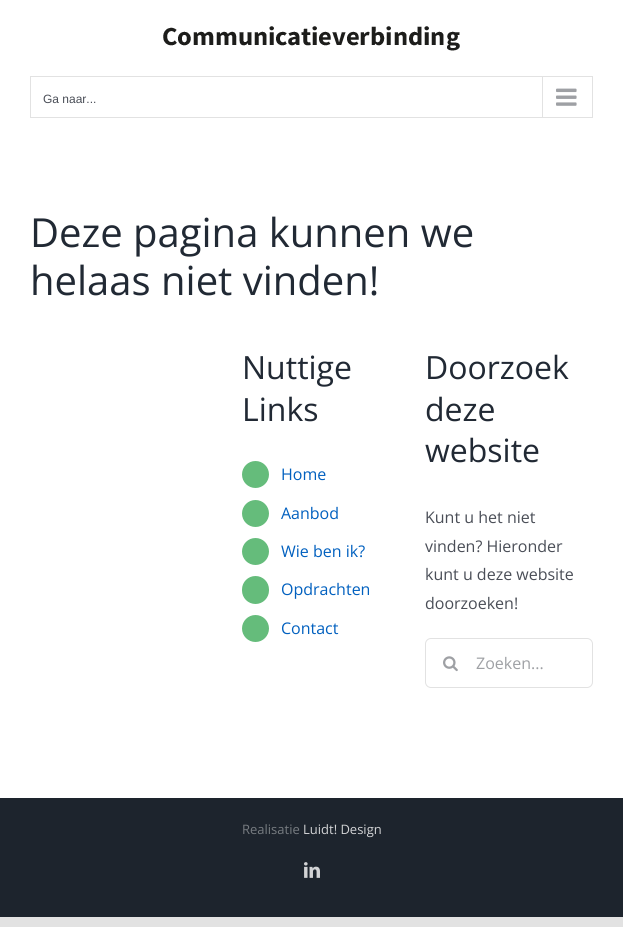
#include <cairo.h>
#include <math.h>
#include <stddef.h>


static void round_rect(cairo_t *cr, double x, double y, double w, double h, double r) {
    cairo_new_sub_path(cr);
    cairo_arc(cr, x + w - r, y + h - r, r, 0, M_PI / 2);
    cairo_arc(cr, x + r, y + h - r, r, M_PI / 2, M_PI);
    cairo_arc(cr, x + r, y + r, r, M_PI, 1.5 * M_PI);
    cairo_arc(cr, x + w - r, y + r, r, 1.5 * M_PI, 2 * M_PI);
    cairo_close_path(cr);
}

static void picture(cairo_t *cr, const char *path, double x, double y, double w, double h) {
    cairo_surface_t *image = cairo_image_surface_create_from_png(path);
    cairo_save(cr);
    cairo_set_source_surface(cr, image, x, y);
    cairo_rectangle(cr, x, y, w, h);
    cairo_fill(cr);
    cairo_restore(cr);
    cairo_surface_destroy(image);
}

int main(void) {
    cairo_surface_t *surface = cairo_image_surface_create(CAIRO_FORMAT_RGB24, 623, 927);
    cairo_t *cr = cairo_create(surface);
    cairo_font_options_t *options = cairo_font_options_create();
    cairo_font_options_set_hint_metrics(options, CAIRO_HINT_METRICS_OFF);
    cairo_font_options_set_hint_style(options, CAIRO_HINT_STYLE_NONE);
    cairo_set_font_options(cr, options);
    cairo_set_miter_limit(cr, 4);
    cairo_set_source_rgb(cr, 0.886, 0.886, 0.886);
    cairo_paint(cr);
    cairo_set_source_rgb(cr, 1, 1, 1);
    cairo_rectangle(cr, 0, 0, 623, 798);
    cairo_fill(cr);
    picture(cr, "img1.png", 163, 26, 297, 25);
    cairo_rectangle(cr, 30.5, 76.5, 562, 41);
    cairo_set_source_rgb(cr, 0.886, 0.886, 0.886);
    cairo_set_line_width(cr, 1);
    cairo_stroke(cr);
    cairo_select_font_face(cr, "Liberation Sans", CAIRO_FONT_SLANT_NORMAL, CAIRO_FONT_WEIGHT_NORMAL);
    cairo_set_font_size(cr, 12);
    cairo_set_source_rgb(cr, 0.29, 0.306, 0.341);
    cairo_move_to(cr, 43, 103);
    cairo_show_text(cr, "Ga naar...");
    cairo_set_source_rgb(cr, 0.886, 0.886, 0.886);
    cairo_rectangle(cr, 542, 77, 1, 40);
    cairo_fill(cr);
    picture(cr, "img2.png", 556, 88, 21, 18);
    cairo_select_font_face(cr, "Open Sans", CAIRO_FONT_SLANT_NORMAL, CAIRO_FONT_WEIGHT_NORMAL);
    cairo_set_font_size(cr, 40);
    cairo_set_source_rgb(cr, 0.129, 0.161, 0.204);
    cairo_move_to(cr, 30, 247);
    cairo_show_text(cr, "Deze pagina kunnen we");
    cairo_move_to(cr, 30, 295);
    cairo_show_text(cr, "helaas niet vinden!");
    cairo_set_font_size(cr, 32);
    cairo_move_to(cr, 242, 379);
    cairo_show_text(cr, "Nuttige");
    cairo_move_to(cr, 242, 421);
    cairo_show_text(cr, "Links");
    cairo_set_source_rgb(cr, 0.396, 0.737, 0.482);
    cairo_new_path(cr);
    cairo_arc(cr, 255.5, 474.5, 13.5, 0, 2 * M_PI);
    cairo_fill(cr);
    cairo_set_font_size(cr, 16);
    cairo_set_source_rgb(cr, 0.004, 0.376, 0.749);
    cairo_move_to(cr, 281, 480);
    cairo_show_text(cr, "Home");
    cairo_set_source_rgb(cr, 0.396, 0.737, 0.482);
    cairo_new_path(cr);
    cairo_arc(cr, 255.5, 513.5, 13.5, 0, 2 * M_PI);
    cairo_fill(cr);
    cairo_set_source_rgb(cr, 0.004, 0.376, 0.749);
    cairo_move_to(cr, 281, 519);
    cairo_show_text(cr, "Aanbod");
    cairo_set_source_rgb(cr, 0.396, 0.737, 0.482);
    cairo_new_path(cr);
    cairo_arc(cr, 255.5, 551.5, 13.5, 0, 2 * M_PI);
    cairo_fill(cr);
    cairo_set_source_rgb(cr, 0.004, 0.376, 0.749);
    cairo_move_to(cr, 281, 557);
    cairo_show_text(cr, "Wie ben ik?");
    cairo_set_source_rgb(cr, 0.396, 0.737, 0.482);
    round_rect(cr, 242, 576, 27, 28, 13.5);
    cairo_fill(cr);
    cairo_set_source_rgb(cr, 0.004, 0.376, 0.749);
    cairo_move_to(cr, 281, 595);
    cairo_show_text(cr, "Opdrachten");
    cairo_set_source_rgb(cr, 0.396, 0.737, 0.482);
    cairo_new_path(cr);
    cairo_arc(cr, 255.5, 628.5, 13.5, 0, 2 * M_PI);
    cairo_fill(cr);
    cairo_set_source_rgb(cr, 0.004, 0.376, 0.749);
    cairo_move_to(cr, 281, 634);
    cairo_show_text(cr, "Contact");
    cairo_set_font_size(cr, 32);
    cairo_set_source_rgb(cr, 0.129, 0.161, 0.204);
    cairo_move_to(cr, 425, 379);
    cairo_show_text(cr, "Doorzoek");
    cairo_move_to(cr, 425, 421);
    cairo_show_text(cr, "deze");
    cairo_move_to(cr, 425, 462);
    cairo_show_text(cr, "website");
    cairo_set_font_size(cr, 16);
    cairo_set_source_rgb(cr, 0.29, 0.306, 0.341);
    cairo_move_to(cr, 425, 523);
    cairo_show_text(cr, "Kunt u het niet");
    cairo_move_to(cr, 425, 552);
    cairo_show_text(cr, "vinden? Hieronder");
    cairo_move_to(cr, 425, 580);
    cairo_show_text(cr, "kunt u deze website");
    cairo_move_to(cr, 425, 609);
    cairo_show_text(cr, "doorzoeken!");
    round_rect(cr, 425.5, 638.5, 167, 49, 5.5);
    cairo_set_source_rgb(cr, 0.886, 0.886, 0.886);
    cairo_stroke(cr);
    picture(cr, "img3.png", 443, 656, 15, 16);
    cairo_set_source_rgb(cr, 0.62, 0.627, 0.643);
    cairo_move_to(cr, 476, 669);
    cairo_show_text(cr, "Zoeken...");
    cairo_set_source_rgb(cr, 0.114, 0.141, 0.176);
    cairo_rectangle(cr, 0, 798, 623, 119);
    cairo_fill(cr);
    cairo_set_font_size(cr, 13);
    cairo_set_source_rgb(cr, 0.467, 0.486, 0.506);
    cairo_move_to(cr, 242, 834);
    cairo_show_text(cr, "Realisatie");
    cairo_set_source_rgb(cr, 0.824, 0.827, 0.835);
    cairo_move_to(cr, 303, 834);
    cairo_show_text(cr, "Luidt! Design");
    picture(cr, "img4.png", 304, 862, 16, 16);
    cairo_surface_write_to_png(surface, "page.png");
    cairo_font_options_destroy(options);
    cairo_destroy(cr);
    cairo_surface_destroy(surface);
    return 0;
}
